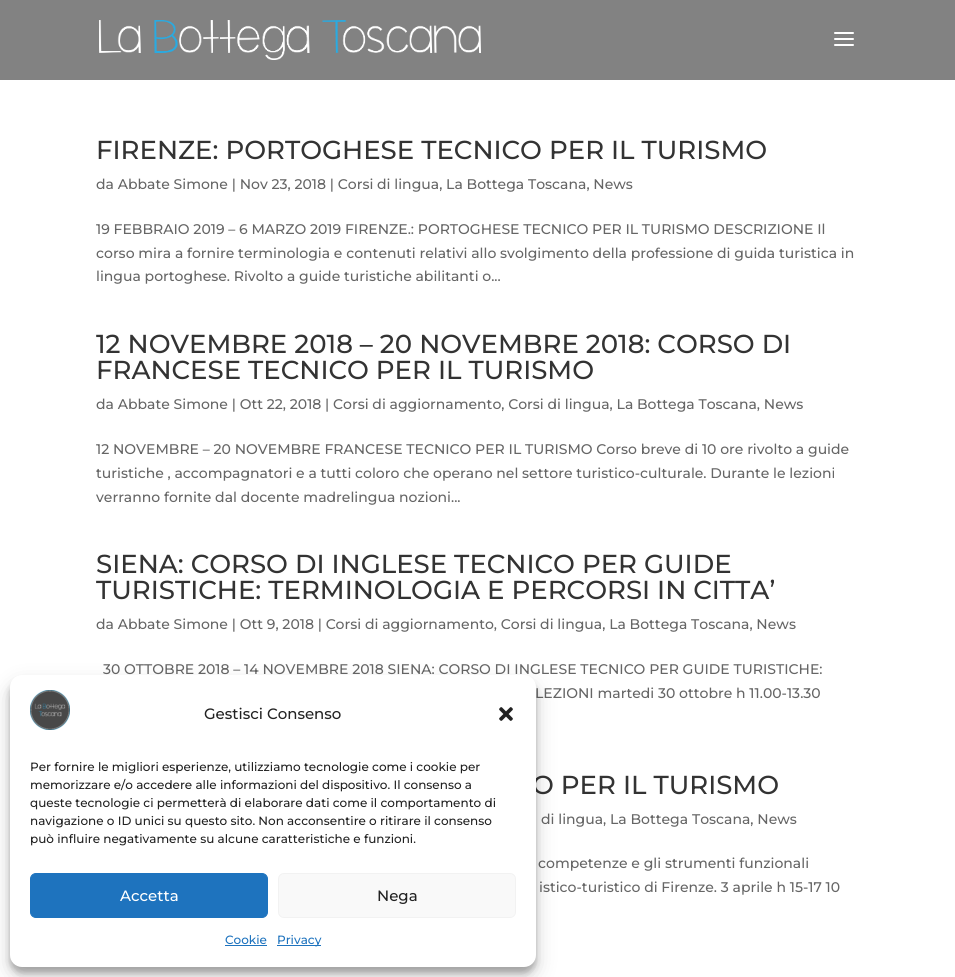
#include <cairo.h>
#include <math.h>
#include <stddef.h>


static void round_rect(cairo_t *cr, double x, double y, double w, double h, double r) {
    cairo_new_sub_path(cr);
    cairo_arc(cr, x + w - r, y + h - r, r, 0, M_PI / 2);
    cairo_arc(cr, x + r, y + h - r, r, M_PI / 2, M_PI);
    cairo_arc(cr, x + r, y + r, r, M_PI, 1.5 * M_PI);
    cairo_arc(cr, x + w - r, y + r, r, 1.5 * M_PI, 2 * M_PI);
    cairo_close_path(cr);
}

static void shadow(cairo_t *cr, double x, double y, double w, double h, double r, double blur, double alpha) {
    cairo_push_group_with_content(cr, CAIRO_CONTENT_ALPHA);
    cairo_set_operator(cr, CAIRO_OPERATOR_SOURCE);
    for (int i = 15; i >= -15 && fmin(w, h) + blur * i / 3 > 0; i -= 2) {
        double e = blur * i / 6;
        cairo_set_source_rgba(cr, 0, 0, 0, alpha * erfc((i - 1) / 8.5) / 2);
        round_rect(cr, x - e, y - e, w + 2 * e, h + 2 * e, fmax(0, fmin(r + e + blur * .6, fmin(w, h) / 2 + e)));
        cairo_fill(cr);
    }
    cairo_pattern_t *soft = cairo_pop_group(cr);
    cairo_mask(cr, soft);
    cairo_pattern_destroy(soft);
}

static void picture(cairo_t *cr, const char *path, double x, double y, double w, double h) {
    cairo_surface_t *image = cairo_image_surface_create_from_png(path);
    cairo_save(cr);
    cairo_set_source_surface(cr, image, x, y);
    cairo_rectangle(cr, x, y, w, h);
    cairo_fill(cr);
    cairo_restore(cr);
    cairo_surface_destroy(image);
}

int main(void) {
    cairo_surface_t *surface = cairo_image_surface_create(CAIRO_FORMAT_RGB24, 955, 977);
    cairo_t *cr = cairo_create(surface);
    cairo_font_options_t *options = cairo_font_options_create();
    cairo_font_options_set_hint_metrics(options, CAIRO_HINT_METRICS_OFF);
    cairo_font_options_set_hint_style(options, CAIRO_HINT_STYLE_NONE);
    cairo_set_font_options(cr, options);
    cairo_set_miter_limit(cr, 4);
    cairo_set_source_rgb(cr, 1, 1, 1);
    cairo_paint(cr);
    cairo_set_source_rgb(cr, 0.51, 0.51, 0.51);
    cairo_rectangle(cr, 0, 0, 955, 80);
    cairo_fill(cr);
    picture(cr, "img1.png", 99, 20, 382, 40);
    picture(cr, "img2.png", 834, 32, 20, 14);
    cairo_select_font_face(cr, "Montserrat Medium", CAIRO_FONT_SLANT_NORMAL, CAIRO_FONT_WEIGHT_NORMAL);
    cairo_set_font_size(cr, 26);
    cairo_set_source_rgb(cr, 0.2, 0.2, 0.2);
    cairo_move_to(cr, 96, 159);
    cairo_show_text(cr, "FIRENZE: PORTOGHESE TECNICO PER IL TURISMO");
    cairo_set_font_size(cr, 14);
    cairo_set_source_rgb(cr, 0.4, 0.4, 0.4);
    cairo_move_to(cr, 96, 189);
    cairo_show_text(cr, "da Abbate Simone | Nov 23, 2018 | Corsi di lingua, La Bottega Toscana, News");
    cairo_move_to(cr, 96, 234);
    cairo_show_text(cr, "19 FEBBRAIO 2019 – 6 MARZO 2019 FIRENZE.: PORTOGHESE TECNICO PER IL TURISMO DESCRIZIONE Il");
    cairo_move_to(cr, 96, 258);
    cairo_show_text(cr, "corso mira a fornire terminologia e contenuti relativi allo svolgimento della professione di guida turistica in");
    cairo_move_to(cr, 96, 281);
    cairo_show_text(cr, "lingua portoghese. Rivolto a guide turistiche abilitanti o...");
    cairo_set_font_size(cr, 26);
    cairo_set_source_rgb(cr, 0.2, 0.2, 0.2);
    cairo_move_to(cr, 96, 353);
    cairo_show_text(cr, "12 NOVEMBRE 2018 – 20 NOVEMBRE 2018: CORSO DI");
    cairo_move_to(cr, 96, 379);
    cairo_show_text(cr, "FRANCESE TECNICO PER IL TURISMO");
    cairo_set_font_size(cr, 14);
    cairo_set_source_rgb(cr, 0.4, 0.4, 0.4);
    cairo_move_to(cr, 96, 409);
    cairo_show_text(cr, "da Abbate Simone | Ott 22, 2018 | Corsi di aggiornamento, Corsi di lingua, La Bottega Toscana, News");
    cairo_move_to(cr, 96, 454);
    cairo_show_text(cr, "12 NOVEMBRE – 20 NOVEMBRE FRANCESE TECNICO PER IL TURISMO Corso breve di 10 ore rivolto a guide");
    cairo_move_to(cr, 96, 478);
    cairo_show_text(cr, "turistiche , accompagnatori e a tutti coloro che operano nel settore turistico-culturale. Durante le lezioni");
    cairo_move_to(cr, 96, 502);
    cairo_show_text(cr, "verranno fornite dal docente madrelingua nozioni...");
    cairo_set_font_size(cr, 26);
    cairo_set_source_rgb(cr, 0.2, 0.2, 0.2);
    cairo_move_to(cr, 96, 573);
    cairo_show_text(cr, "SIENA: CORSO DI INGLESE TECNICO PER GUIDE");
    cairo_move_to(cr, 96, 599);
    cairo_show_text(cr, "TURISTICHE: TERMINOLOGIA E PERCORSI IN CITTA’");
    cairo_set_font_size(cr, 14);
    cairo_set_source_rgb(cr, 0.4, 0.4, 0.4);
    cairo_move_to(cr, 96, 629);
    cairo_show_text(cr, "da Abbate Simone | Ott 9, 2018 | Corsi di aggiornamento, Corsi di lingua, La Bottega Toscana, News");
    cairo_move_to(cr, 103, 674);
    cairo_show_text(cr, "30 OTTOBRE 2018 – 14 NOVEMBRE 2018 SIENA: CORSO DI INGLESE TECNICO PER GUIDE TURISTICHE:");
    cairo_move_to(cr, 535, 698);
    cairo_show_text(cr, "LEZIONI martedi 30 ottobre h 11.00-13.30");
    cairo_set_font_size(cr, 26);
    cairo_set_source_rgb(cr, 0.2, 0.2, 0.2);
    cairo_move_to(cr, 532, 794);
    cairo_show_text(cr, "O PER IL TURISMO");
    cairo_set_font_size(cr, 14);
    cairo_set_source_rgb(cr, 0.4, 0.4, 0.4);
    cairo_move_to(cr, 541, 824);
    cairo_show_text(cr, "di lingua, La Bottega Toscana, News");
    cairo_move_to(cr, 538, 868);
    cairo_show_text(cr, "competenze e gli strumenti funzionali");
    cairo_move_to(cr, 539, 892);
    cairo_show_text(cr, "istico-turistico di Firenze. 3 aprile h 15-17 10");
    cairo_set_source_rgb(cr, 0, 0, 0);
    shadow(cr, 10, 681, 526, 292, 12, 3, 0.23);
    shadow(cr, 10, 685, 526, 292, 12, 10, 0.19);
    cairo_set_source_rgb(cr, 1, 1, 1);
    round_rect(cr, 10, 675, 526, 292, 12);
    cairo_fill(cr);
    picture(cr, "img3.png", 30, 690, 40, 40);
    cairo_set_font_size(cr, 15);
    cairo_set_source_rgb(cr, 0.133, 0.133, 0.133);
    cairo_move_to(cr, 204, 719);
    cairo_show_text(cr, "Gestisci Consenso");
    picture(cr, "img4.png", 499, 707, 14, 14);
    cairo_set_font_size(cr, 12);
    cairo_move_to(cr, 30, 771);
    cairo_show_text(cr, "Per fornire le migliori esperienze, utilizziamo tecnologie come i cookie per");
    cairo_move_to(cr, 30, 789);
    cairo_show_text(cr, "memorizzare e/o accedere alle informazioni del dispositivo. Il consenso a");
    cairo_move_to(cr, 30, 807);
    cairo_show_text(cr, "queste tecnologie ci permetterà di elaborare dati come il comportamento di");
    cairo_move_to(cr, 30, 825);
    cairo_show_text(cr, "navigazione o ID unici su questo sito. Non acconsentire o ritirare il consenso");
    cairo_move_to(cr, 30, 843);
    cairo_show_text(cr, "può influire negativamente su alcune caratteristiche e funzioni.");
    cairo_set_source_rgb(cr, 0.118, 0.451, 0.745);
    round_rect(cr, 30.5, 873.5, 237, 44, 5.5);
    cairo_fill_preserve(cr);
    cairo_set_line_width(cr, 1);
    cairo_stroke(cr);
    cairo_set_font_size(cr, 15);
    cairo_set_source_rgb(cr, 1, 1, 1);
    cairo_move_to(cr, 120, 901);
    cairo_show_text(cr, "Accetta");
    cairo_set_source_rgb(cr, 0.976, 0.976, 0.976);
    round_rect(cr, 278.5, 873.5, 237, 44, 5.5);
    cairo_fill_preserve(cr);
    cairo_set_source_rgb(cr, 0.949, 0.949, 0.949);
    cairo_stroke(cr);
    cairo_set_source_rgb(cr, 0.133, 0.133, 0.133);
    cairo_move_to(cr, 377, 901);
    cairo_show_text(cr, "Nega");
    cairo_set_font_size(cr, 12);
    cairo_set_source_rgb(cr, 0.118, 0.451, 0.745);
    cairo_move_to(cr, 225, 944);
    cairo_show_text(cr, "Cookie");
    cairo_rectangle(cr, 225, 945, 42, 1);
    cairo_fill(cr);
    cairo_rectangle(cr, 277, 945, 44, 1);
    cairo_fill(cr);
    cairo_move_to(cr, 277, 944);
    cairo_show_text(cr, "Privacy");
    cairo_surface_write_to_png(surface, "page.png");
    cairo_font_options_destroy(options);
    cairo_destroy(cr);
    cairo_surface_destroy(surface);
    return 0;
}
